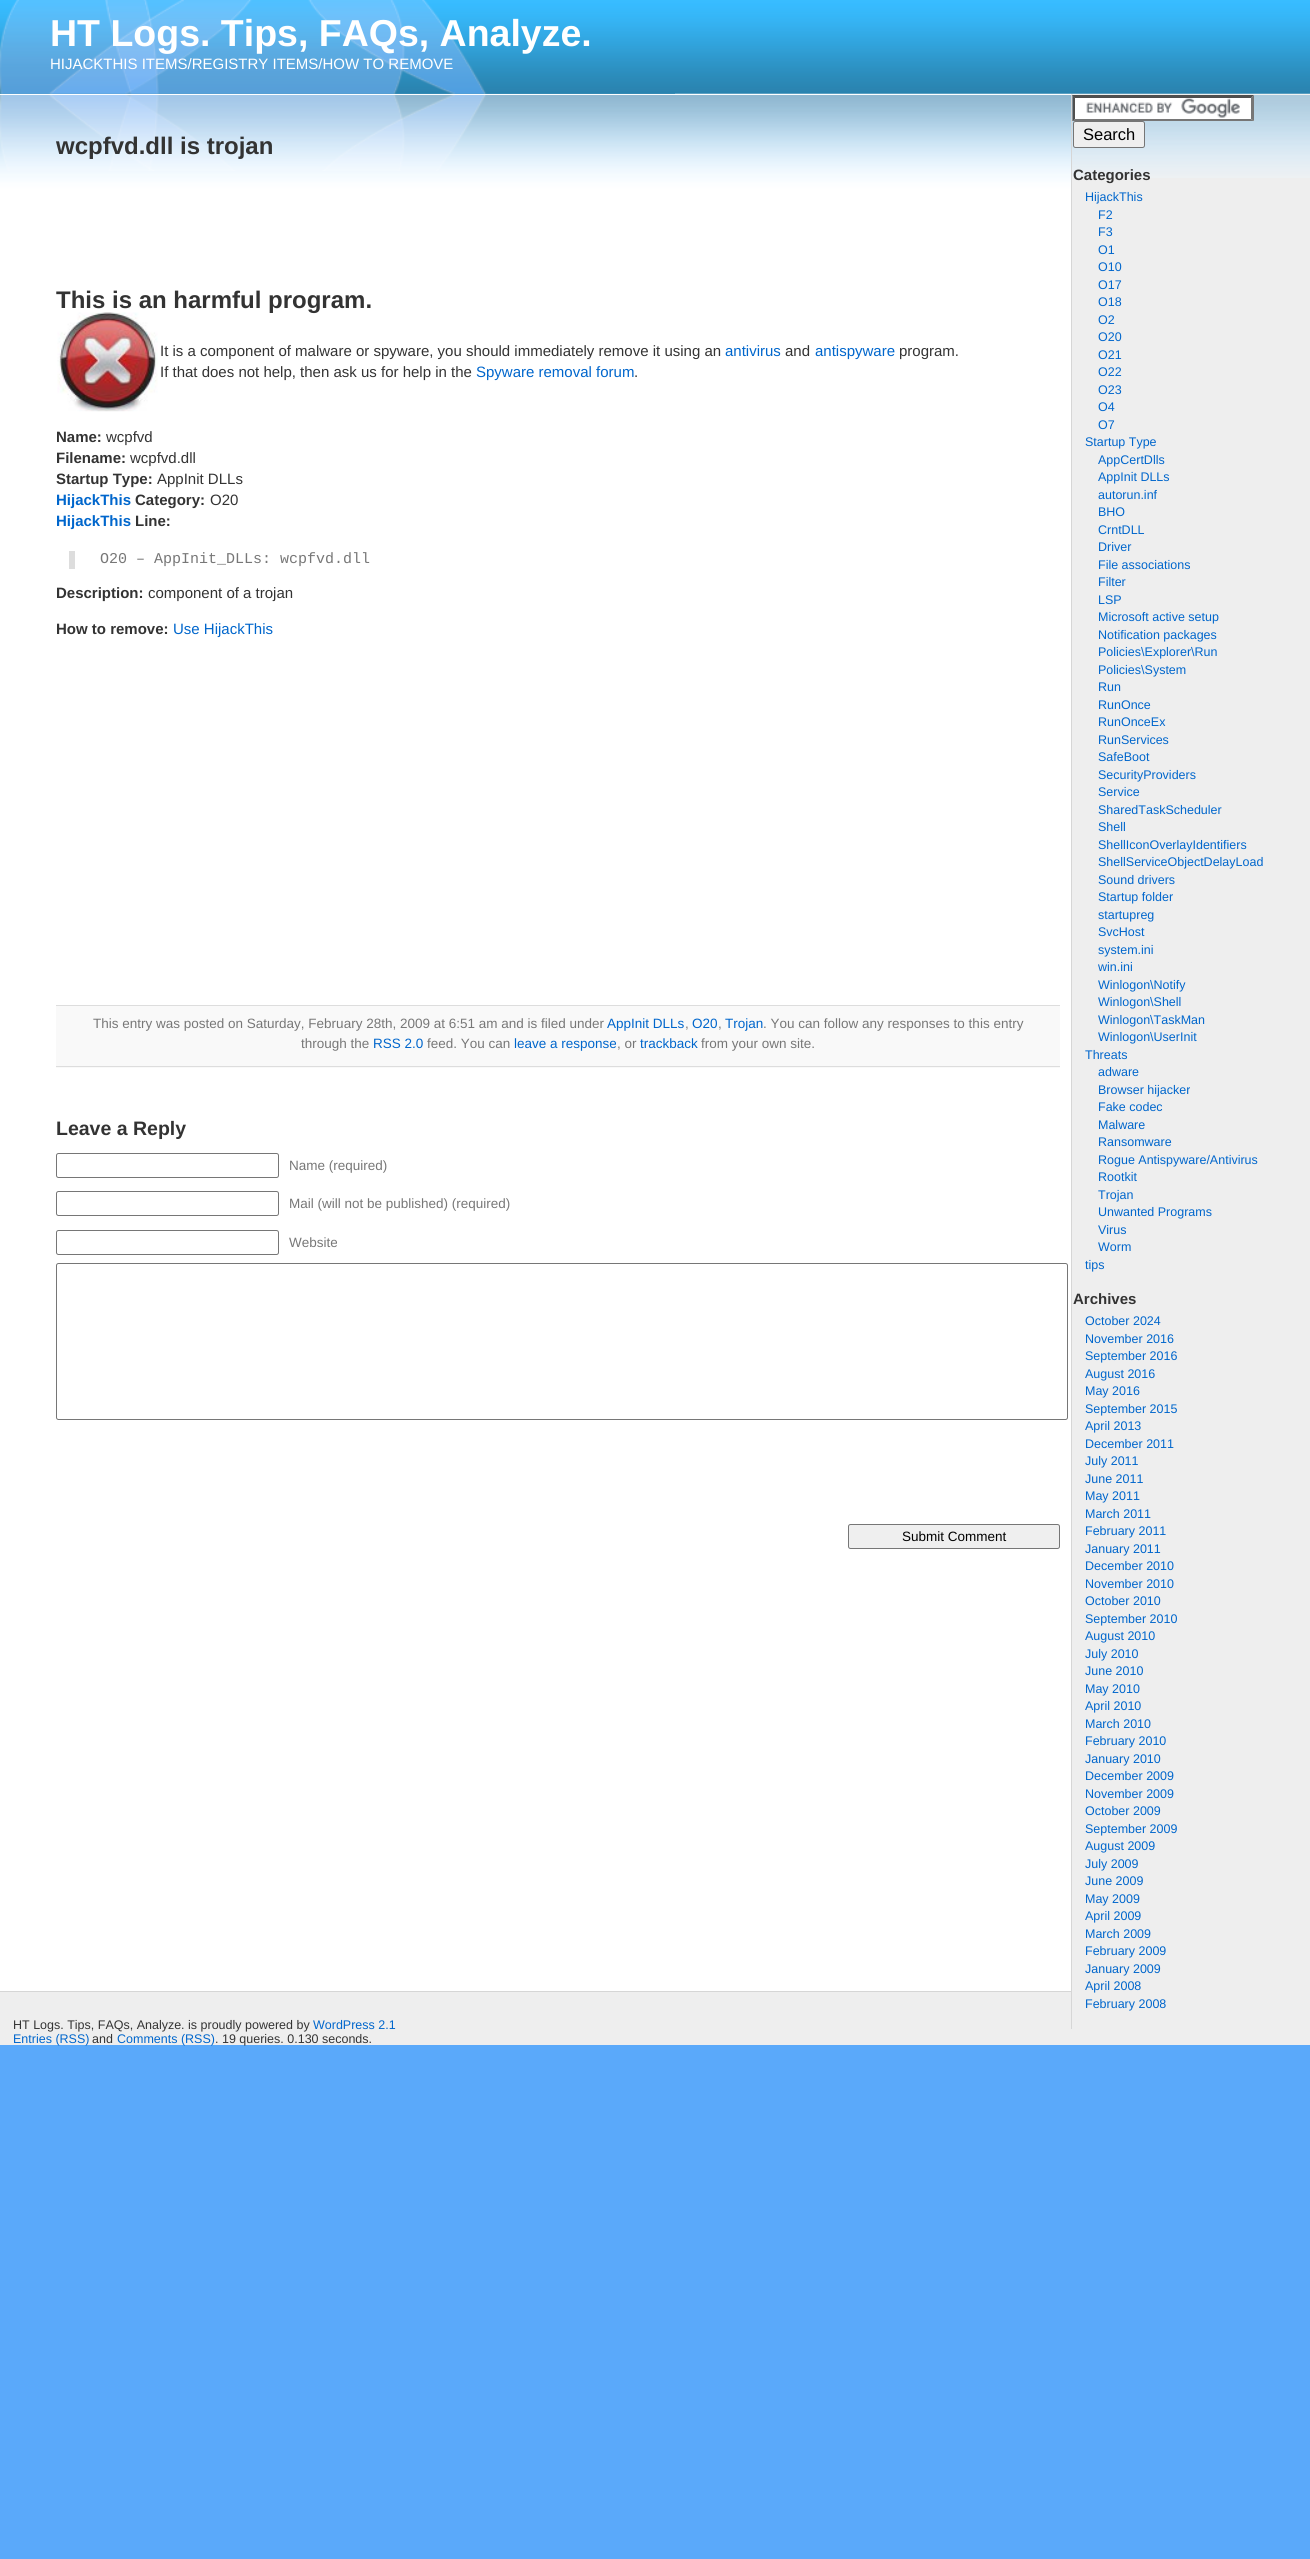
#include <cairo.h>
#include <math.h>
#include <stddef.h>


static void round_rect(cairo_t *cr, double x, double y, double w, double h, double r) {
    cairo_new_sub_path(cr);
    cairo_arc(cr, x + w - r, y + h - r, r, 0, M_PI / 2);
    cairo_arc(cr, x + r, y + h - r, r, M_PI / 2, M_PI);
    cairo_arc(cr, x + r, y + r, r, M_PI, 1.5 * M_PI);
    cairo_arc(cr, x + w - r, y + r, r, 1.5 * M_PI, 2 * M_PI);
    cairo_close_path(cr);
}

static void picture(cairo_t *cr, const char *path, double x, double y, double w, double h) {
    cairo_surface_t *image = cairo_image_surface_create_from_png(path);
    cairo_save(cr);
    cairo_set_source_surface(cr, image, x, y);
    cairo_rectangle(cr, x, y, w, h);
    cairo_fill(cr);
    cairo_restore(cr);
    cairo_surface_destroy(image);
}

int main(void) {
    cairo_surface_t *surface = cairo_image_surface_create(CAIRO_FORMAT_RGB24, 1310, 2559);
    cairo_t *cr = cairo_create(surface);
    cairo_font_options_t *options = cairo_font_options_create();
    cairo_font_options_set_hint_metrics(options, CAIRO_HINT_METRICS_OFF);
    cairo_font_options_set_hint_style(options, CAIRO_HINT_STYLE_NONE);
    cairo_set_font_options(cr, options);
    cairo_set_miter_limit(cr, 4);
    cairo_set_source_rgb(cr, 0.353, 0.663, 0.98);
    cairo_paint(cr);
    cairo_set_source_rgb(cr, 1, 1, 1);
    cairo_rectangle(cr, 0, 93, 1071, 1898);
    cairo_fill(cr);
    picture(cr, "img1.png", 1071, 93, 239, 2);
    picture(cr, "img2.png", 0, 0, 1310, 94);
    picture(cr, "img3.png", 0, 0, 675, 94);
    cairo_select_font_face(cr, "Liberation Sans", CAIRO_FONT_SLANT_NORMAL, CAIRO_FONT_WEIGHT_BOLD);
    cairo_set_font_size(cr, 37.5);
    cairo_move_to(cr, 50, 46);
    cairo_show_text(cr, "HT Logs. Tips, FAQs, Analyze.");
    cairo_select_font_face(cr, "Liberation Sans", CAIRO_FONT_SLANT_NORMAL, CAIRO_FONT_WEIGHT_NORMAL);
    cairo_set_font_size(cr, 15);
    cairo_move_to(cr, 50, 69);
    cairo_show_text(cr, "HIJACKTHIS ITEMS/REGISTRY ITEMS/HOW TO REMOVE");
    picture(cr, "img4.png", 0, 95, 1071, 94);
    picture(cr, "img5.png", 0, 95, 486, 76);
    cairo_select_font_face(cr, "Liberation Sans", CAIRO_FONT_SLANT_NORMAL, CAIRO_FONT_WEIGHT_BOLD);
    cairo_set_font_size(cr, 24);
    cairo_set_source_rgb(cr, 0.2, 0.2, 0.2);
    cairo_move_to(cr, 56, 154);
    cairo_show_text(cr, "wcpfvd.dll is trojan");
    cairo_move_to(cr, 56, 308);
    cairo_show_text(cr, "This is an harmful program.");
    picture(cr, "img6.png", 57, 312, 101, 100);
    cairo_select_font_face(cr, "Liberation Sans", CAIRO_FONT_SLANT_NORMAL, CAIRO_FONT_WEIGHT_NORMAL);
    cairo_set_font_size(cr, 15);
    cairo_move_to(cr, 160, 356);
    cairo_show_text(cr, "It is a component of malware or spyware, you should immediately remove it using an");
    cairo_set_source_rgb(cr, 0, 0.4, 0.8);
    cairo_move_to(cr, 725, 356);
    cairo_show_text(cr, "antivirus");
    cairo_set_source_rgb(cr, 0.2, 0.2, 0.2);
    cairo_move_to(cr, 785, 356);
    cairo_show_text(cr, "and");
    cairo_set_source_rgb(cr, 0, 0.4, 0.8);
    cairo_move_to(cr, 815, 356);
    cairo_show_text(cr, "antispyware");
    cairo_set_source_rgb(cr, 0.2, 0.2, 0.2);
    cairo_move_to(cr, 899, 356);
    cairo_show_text(cr, "program.");
    cairo_move_to(cr, 160, 377);
    cairo_show_text(cr, "If that does not help, then ask us for help in the");
    cairo_set_source_rgb(cr, 0, 0.4, 0.8);
    cairo_move_to(cr, 476, 377);
    cairo_show_text(cr, "Spyware removal forum");
    cairo_set_source_rgb(cr, 0.2, 0.2, 0.2);
    cairo_move_to(cr, 634, 377);
    cairo_show_text(cr, ".");
    cairo_select_font_face(cr, "Liberation Sans", CAIRO_FONT_SLANT_NORMAL, CAIRO_FONT_WEIGHT_BOLD);
    cairo_move_to(cr, 56, 442);
    cairo_show_text(cr, "Name:");
    cairo_select_font_face(cr, "Liberation Sans", CAIRO_FONT_SLANT_NORMAL, CAIRO_FONT_WEIGHT_NORMAL);
    cairo_move_to(cr, 106, 442);
    cairo_show_text(cr, "wcpfvd");
    cairo_select_font_face(cr, "Liberation Sans", CAIRO_FONT_SLANT_NORMAL, CAIRO_FONT_WEIGHT_BOLD);
    cairo_move_to(cr, 56, 463);
    cairo_show_text(cr, "Filename:");
    cairo_select_font_face(cr, "Liberation Sans", CAIRO_FONT_SLANT_NORMAL, CAIRO_FONT_WEIGHT_NORMAL);
    cairo_move_to(cr, 130, 463);
    cairo_show_text(cr, "wcpfvd.dll");
    cairo_select_font_face(cr, "Liberation Sans", CAIRO_FONT_SLANT_NORMAL, CAIRO_FONT_WEIGHT_BOLD);
    cairo_move_to(cr, 56, 484);
    cairo_show_text(cr, "Startup Type:");
    cairo_select_font_face(cr, "Liberation Sans", CAIRO_FONT_SLANT_NORMAL, CAIRO_FONT_WEIGHT_NORMAL);
    cairo_move_to(cr, 157, 484);
    cairo_show_text(cr, "AppInit DLLs");
    cairo_select_font_face(cr, "Liberation Sans", CAIRO_FONT_SLANT_NORMAL, CAIRO_FONT_WEIGHT_BOLD);
    cairo_set_source_rgb(cr, 0, 0.4, 0.8);
    cairo_move_to(cr, 56, 505);
    cairo_show_text(cr, "HijackThis");
    cairo_set_source_rgb(cr, 0.2, 0.2, 0.2);
    cairo_move_to(cr, 135, 505);
    cairo_show_text(cr, "Category:");
    cairo_select_font_face(cr, "Liberation Sans", CAIRO_FONT_SLANT_NORMAL, CAIRO_FONT_WEIGHT_NORMAL);
    cairo_move_to(cr, 210, 505);
    cairo_show_text(cr, "O20");
    cairo_select_font_face(cr, "Liberation Sans", CAIRO_FONT_SLANT_NORMAL, CAIRO_FONT_WEIGHT_BOLD);
    cairo_set_source_rgb(cr, 0, 0.4, 0.8);
    cairo_move_to(cr, 56, 526);
    cairo_show_text(cr, "HijackThis");
    cairo_set_source_rgb(cr, 0.2, 0.2, 0.2);
    cairo_move_to(cr, 135, 526);
    cairo_show_text(cr, "Line:");
    cairo_set_source_rgb(cr, 0.867, 0.867, 0.867);
    cairo_rectangle(cr, 69, 551, 6, 18);
    cairo_fill(cr);
    cairo_select_font_face(cr, "Liberation Mono", CAIRO_FONT_SLANT_NORMAL, CAIRO_FONT_WEIGHT_NORMAL);
    cairo_set_source_rgb(cr, 0.467, 0.467, 0.467);
    cairo_move_to(cr, 100, 563);
    cairo_show_text(cr, "O20 – AppInit_DLLs: wcpfvd.dll");
    cairo_select_font_face(cr, "Liberation Sans", CAIRO_FONT_SLANT_NORMAL, CAIRO_FONT_WEIGHT_BOLD);
    cairo_set_source_rgb(cr, 0.2, 0.2, 0.2);
    cairo_move_to(cr, 56, 598);
    cairo_show_text(cr, "Description:");
    cairo_select_font_face(cr, "Liberation Sans", CAIRO_FONT_SLANT_NORMAL, CAIRO_FONT_WEIGHT_NORMAL);
    cairo_move_to(cr, 148, 598);
    cairo_show_text(cr, "component of a trojan");
    cairo_select_font_face(cr, "Liberation Sans", CAIRO_FONT_SLANT_NORMAL, CAIRO_FONT_WEIGHT_BOLD);
    cairo_move_to(cr, 56, 634);
    cairo_show_text(cr, "How to remove:");
    cairo_select_font_face(cr, "Liberation Sans", CAIRO_FONT_SLANT_NORMAL, CAIRO_FONT_WEIGHT_NORMAL);
    cairo_set_source_rgb(cr, 0, 0.4, 0.8);
    cairo_move_to(cr, 173, 634);
    cairo_show_text(cr, "Use HijackThis");
    cairo_set_source_rgb(cr, 0.973, 0.973, 0.973);
    cairo_rectangle(cr, 56, 1006, 1004, 62);
    cairo_fill(cr);
    cairo_set_source_rgb(cr, 0.867, 0.867, 0.867);
    cairo_rectangle(cr, 56, 1005, 1004, 1);
    cairo_fill(cr);
    cairo_rectangle(cr, 56, 1066, 1004, 1);
    cairo_fill(cr);
    cairo_set_font_size(cr, 13.5);
    cairo_set_source_rgb(cr, 0.467, 0.467, 0.467);
    cairo_move_to(cr, 93, 1028);
    cairo_show_text(cr, "This entry was posted on Saturday, February 28th, 2009 at 6:51 am and is filed under");
    cairo_set_source_rgb(cr, 0, 0.4, 0.8);
    cairo_move_to(cr, 607, 1028);
    cairo_show_text(cr, "AppInit DLLs");
    cairo_set_source_rgb(cr, 0.467, 0.467, 0.467);
    cairo_move_to(cr, 685, 1028);
    cairo_show_text(cr, ",");
    cairo_set_source_rgb(cr, 0, 0.4, 0.8);
    cairo_move_to(cr, 692, 1028);
    cairo_show_text(cr, "O20");
    cairo_set_source_rgb(cr, 0.467, 0.467, 0.467);
    cairo_move_to(cr, 718, 1028);
    cairo_show_text(cr, ",");
    cairo_set_source_rgb(cr, 0, 0.4, 0.8);
    cairo_move_to(cr, 725, 1028);
    cairo_show_text(cr, "Trojan");
    cairo_set_source_rgb(cr, 0.467, 0.467, 0.467);
    cairo_move_to(cr, 763, 1028);
    cairo_show_text(cr, ". You can follow any responses to this entry");
    cairo_move_to(cr, 301, 1048);
    cairo_show_text(cr, "through the");
    cairo_set_source_rgb(cr, 0, 0.4, 0.8);
    cairo_move_to(cr, 373, 1048);
    cairo_show_text(cr, "RSS 2.0");
    cairo_set_source_rgb(cr, 0.467, 0.467, 0.467);
    cairo_move_to(cr, 427, 1048);
    cairo_show_text(cr, "feed. You can");
    cairo_set_source_rgb(cr, 0, 0.4, 0.8);
    cairo_move_to(cr, 514, 1048);
    cairo_show_text(cr, "leave a response");
    cairo_set_source_rgb(cr, 0.467, 0.467, 0.467);
    cairo_move_to(cr, 617, 1048);
    cairo_show_text(cr, ", or");
    cairo_set_source_rgb(cr, 0, 0.4, 0.8);
    cairo_move_to(cr, 640, 1048);
    cairo_show_text(cr, "trackback");
    cairo_set_source_rgb(cr, 0.467, 0.467, 0.467);
    cairo_move_to(cr, 701, 1048);
    cairo_show_text(cr, "from your own site.");
    cairo_select_font_face(cr, "Liberation Sans", CAIRO_FONT_SLANT_NORMAL, CAIRO_FONT_WEIGHT_BOLD);
    cairo_set_font_size(cr, 19.5);
    cairo_set_source_rgb(cr, 0.2, 0.2, 0.2);
    cairo_move_to(cr, 56, 1135);
    cairo_show_text(cr, "Leave a Reply");
    round_rect(cr, 56.5, 1153.5, 222, 24, 2);
    cairo_set_source_rgb(cr, 0.463, 0.463, 0.463);
    cairo_set_line_width(cr, 1);
    cairo_stroke(cr);
    cairo_select_font_face(cr, "Liberation Sans", CAIRO_FONT_SLANT_NORMAL, CAIRO_FONT_WEIGHT_NORMAL);
    cairo_set_font_size(cr, 13.5);
    cairo_set_source_rgb(cr, 0.467, 0.467, 0.467);
    cairo_move_to(cr, 289, 1170);
    cairo_show_text(cr, "Name (required)");
    round_rect(cr, 56.5, 1191.5, 222, 24, 2);
    cairo_set_source_rgb(cr, 0.463, 0.463, 0.463);
    cairo_stroke(cr);
    cairo_set_source_rgb(cr, 0.467, 0.467, 0.467);
    cairo_move_to(cr, 289, 1208);
    cairo_show_text(cr, "Mail (will not be published) (required)");
    round_rect(cr, 56.5, 1230.5, 222, 24, 2);
    cairo_set_source_rgb(cr, 0.463, 0.463, 0.463);
    cairo_stroke(cr);
    cairo_set_source_rgb(cr, 0.467, 0.467, 0.467);
    cairo_move_to(cr, 289, 1247);
    cairo_show_text(cr, "Website");
    round_rect(cr, 56.5, 1263.5, 1011, 156, 2);
    cairo_set_source_rgb(cr, 0.463, 0.463, 0.463);
    cairo_stroke(cr);
    cairo_set_source_rgb(cr, 0.937, 0.937, 0.937);
    round_rect(cr, 848.5, 1524.5, 211, 24, 2);
    cairo_fill_preserve(cr);
    cairo_set_source_rgb(cr, 0.463, 0.463, 0.463);
    cairo_stroke(cr);
    cairo_set_source_rgb(cr, 0, 0, 0);
    cairo_move_to(cr, 902, 1541);
    cairo_show_text(cr, "Submit Comment");
    cairo_set_source_rgb(cr, 0.933, 0.933, 0.933);
    cairo_rectangle(cr, 1072, 178, 238, 1814);
    cairo_fill(cr);
    picture(cr, "img7.png", 1072, 95, 238, 83);
    cairo_rectangle(cr, 0, 1992, 1310, 53);
    cairo_fill(cr);
    cairo_set_source_rgb(cr, 0.839, 0.839, 0.839);
    cairo_rectangle(cr, 1071, 95, 1, 1934);
    cairo_fill(cr);
    cairo_set_source_rgb(cr, 1, 1, 1);
    cairo_rectangle(cr, 1073, 95, 181, 26);
    cairo_fill(cr);
    picture(cr, "img8.png", 1086, 98, 154, 20);
    cairo_set_source_rgb(cr, 0.31, 0.31, 0.31);
    cairo_new_path(cr);
    cairo_move_to(cr, 1072, 95);
    cairo_line_to(cr, 1254, 95);
    cairo_line_to(cr, 1251, 98);
    cairo_line_to(cr, 1075, 98);
    cairo_close_path(cr);
    cairo_fill(cr);
    cairo_set_source_rgb(cr, 0.463, 0.463, 0.463);
    cairo_new_path(cr);
    cairo_move_to(cr, 1254, 95);
    cairo_line_to(cr, 1254, 121);
    cairo_line_to(cr, 1251, 119);
    cairo_line_to(cr, 1251, 97.5);
    cairo_close_path(cr);
    cairo_fill(cr);
    cairo_new_path(cr);
    cairo_move_to(cr, 1254, 121);
    cairo_line_to(cr, 1072, 121);
    cairo_line_to(cr, 1075, 119);
    cairo_line_to(cr, 1251, 119);
    cairo_close_path(cr);
    cairo_fill(cr);
    cairo_set_source_rgb(cr, 0.31, 0.31, 0.31);
    cairo_new_path(cr);
    cairo_move_to(cr, 1072.5, 121);
    cairo_line_to(cr, 1072.5, 95);
    cairo_line_to(cr, 1075, 97.5);
    cairo_line_to(cr, 1075, 119);
    cairo_close_path(cr);
    cairo_fill(cr);
    cairo_set_source_rgb(cr, 0.937, 0.937, 0.937);
    round_rect(cr, 1073.5, 121.5, 71, 26, 2);
    cairo_fill_preserve(cr);
    cairo_set_source_rgb(cr, 0.463, 0.463, 0.463);
    cairo_stroke(cr);
    cairo_set_font_size(cr, 16.5);
    cairo_set_source_rgb(cr, 0, 0, 0);
    cairo_move_to(cr, 1083, 140);
    cairo_show_text(cr, "Search");
    cairo_select_font_face(cr, "Liberation Sans", CAIRO_FONT_SLANT_NORMAL, CAIRO_FONT_WEIGHT_BOLD);
    cairo_set_font_size(cr, 15);
    cairo_set_source_rgb(cr, 0.2, 0.2, 0.2);
    cairo_move_to(cr, 1073, 180);
    cairo_show_text(cr, "Categories");
    cairo_select_font_face(cr, "Liberation Sans", CAIRO_FONT_SLANT_NORMAL, CAIRO_FONT_WEIGHT_NORMAL);
    cairo_set_font_size(cr, 12.5);
    cairo_set_source_rgb(cr, 0, 0.4, 0.8);
    cairo_move_to(cr, 1085, 201);
    cairo_show_text(cr, "HijackThis");
    cairo_move_to(cr, 1098, 219);
    cairo_show_text(cr, "F2");
    cairo_move_to(cr, 1098, 236);
    cairo_show_text(cr, "F3");
    cairo_move_to(cr, 1098, 254);
    cairo_show_text(cr, "O1");
    cairo_move_to(cr, 1098, 271);
    cairo_show_text(cr, "O10");
    cairo_move_to(cr, 1098, 289);
    cairo_show_text(cr, "O17");
    cairo_move_to(cr, 1098, 306);
    cairo_show_text(cr, "O18");
    cairo_move_to(cr, 1098, 324);
    cairo_show_text(cr, "O2");
    cairo_move_to(cr, 1098, 341);
    cairo_show_text(cr, "O20");
    cairo_move_to(cr, 1098, 359);
    cairo_show_text(cr, "O21");
    cairo_move_to(cr, 1098, 376);
    cairo_show_text(cr, "O22");
    cairo_move_to(cr, 1098, 394);
    cairo_show_text(cr, "O23");
    cairo_move_to(cr, 1098, 411);
    cairo_show_text(cr, "O4");
    cairo_move_to(cr, 1098, 429);
    cairo_show_text(cr, "O7");
    cairo_move_to(cr, 1085, 446);
    cairo_show_text(cr, "Startup Type");
    cairo_move_to(cr, 1098, 464);
    cairo_show_text(cr, "AppCertDlls");
    cairo_move_to(cr, 1098, 481);
    cairo_show_text(cr, "AppInit DLLs");
    cairo_move_to(cr, 1098, 499);
    cairo_show_text(cr, "autorun.inf");
    cairo_move_to(cr, 1098, 516);
    cairo_show_text(cr, "BHO");
    cairo_move_to(cr, 1098, 534);
    cairo_show_text(cr, "CrntDLL");
    cairo_move_to(cr, 1098, 551);
    cairo_show_text(cr, "Driver");
    cairo_move_to(cr, 1098, 569);
    cairo_show_text(cr, "File associations");
    cairo_move_to(cr, 1098, 586);
    cairo_show_text(cr, "Filter");
    cairo_move_to(cr, 1098, 604);
    cairo_show_text(cr, "LSP");
    cairo_move_to(cr, 1098, 621);
    cairo_show_text(cr, "Microsoft active setup");
    cairo_move_to(cr, 1098, 639);
    cairo_show_text(cr, "Notification packages");
    cairo_move_to(cr, 1098, 656);
    cairo_show_text(cr, "Policies\\Explorer\\Run");
    cairo_move_to(cr, 1098, 674);
    cairo_show_text(cr, "Policies\\System");
    cairo_move_to(cr, 1098, 691);
    cairo_show_text(cr, "Run");
    cairo_move_to(cr, 1098, 709);
    cairo_show_text(cr, "RunOnce");
    cairo_move_to(cr, 1098, 726);
    cairo_show_text(cr, "RunOnceEx");
    cairo_move_to(cr, 1098, 744);
    cairo_show_text(cr, "RunServices");
    cairo_move_to(cr, 1098, 761);
    cairo_show_text(cr, "SafeBoot");
    cairo_move_to(cr, 1098, 779);
    cairo_show_text(cr, "SecurityProviders");
    cairo_move_to(cr, 1098, 796);
    cairo_show_text(cr, "Service");
    cairo_move_to(cr, 1098, 814);
    cairo_show_text(cr, "SharedTaskScheduler");
    cairo_move_to(cr, 1098, 831);
    cairo_show_text(cr, "Shell");
    cairo_move_to(cr, 1098, 849);
    cairo_show_text(cr, "ShellIconOverlayIdentifiers");
    cairo_move_to(cr, 1098, 866);
    cairo_show_text(cr, "ShellServiceObjectDelayLoad");
    cairo_move_to(cr, 1098, 884);
    cairo_show_text(cr, "Sound drivers");
    cairo_move_to(cr, 1098, 901);
    cairo_show_text(cr, "Startup folder");
    cairo_move_to(cr, 1098, 919);
    cairo_show_text(cr, "startupreg");
    cairo_move_to(cr, 1098, 936);
    cairo_show_text(cr, "SvcHost");
    cairo_move_to(cr, 1098, 954);
    cairo_show_text(cr, "system.ini");
    cairo_move_to(cr, 1098, 971);
    cairo_show_text(cr, "win.ini");
    cairo_move_to(cr, 1098, 989);
    cairo_show_text(cr, "Winlogon\\Notify");
    cairo_move_to(cr, 1098, 1006);
    cairo_show_text(cr, "Winlogon\\Shell");
    cairo_move_to(cr, 1098, 1024);
    cairo_show_text(cr, "Winlogon\\TaskMan");
    cairo_move_to(cr, 1098, 1041);
    cairo_show_text(cr, "Winlogon\\UserInit");
    cairo_move_to(cr, 1085, 1059);
    cairo_show_text(cr, "Threats");
    cairo_move_to(cr, 1098, 1076);
    cairo_show_text(cr, "adware");
    cairo_move_to(cr, 1098, 1094);
    cairo_show_text(cr, "Browser hijacker");
    cairo_move_to(cr, 1098, 1111);
    cairo_show_text(cr, "Fake codec");
    cairo_move_to(cr, 1098, 1129);
    cairo_show_text(cr, "Malware");
    cairo_move_to(cr, 1098, 1146);
    cairo_show_text(cr, "Ransomware");
    cairo_move_to(cr, 1098, 1164);
    cairo_show_text(cr, "Rogue Antispyware/Antivirus");
    cairo_move_to(cr, 1098, 1181);
    cairo_show_text(cr, "Rootkit");
    cairo_move_to(cr, 1098, 1199);
    cairo_show_text(cr, "Trojan");
    cairo_move_to(cr, 1098, 1216);
    cairo_show_text(cr, "Unwanted Programs");
    cairo_move_to(cr, 1098, 1234);
    cairo_show_text(cr, "Virus");
    cairo_move_to(cr, 1098, 1251);
    cairo_show_text(cr, "Worm");
    cairo_move_to(cr, 1085, 1269);
    cairo_show_text(cr, "tips");
    cairo_select_font_face(cr, "Liberation Sans", CAIRO_FONT_SLANT_NORMAL, CAIRO_FONT_WEIGHT_BOLD);
    cairo_set_font_size(cr, 15);
    cairo_set_source_rgb(cr, 0.2, 0.2, 0.2);
    cairo_move_to(cr, 1073, 1304);
    cairo_show_text(cr, "Archives");
    cairo_select_font_face(cr, "Liberation Sans", CAIRO_FONT_SLANT_NORMAL, CAIRO_FONT_WEIGHT_NORMAL);
    cairo_set_font_size(cr, 12.5);
    cairo_set_source_rgb(cr, 0, 0.4, 0.8);
    cairo_move_to(cr, 1085, 1325);
    cairo_show_text(cr, "October 2024");
    cairo_move_to(cr, 1085, 1343);
    cairo_show_text(cr, "November 2016");
    cairo_move_to(cr, 1085, 1360);
    cairo_show_text(cr, "September 2016");
    cairo_move_to(cr, 1085, 1378);
    cairo_show_text(cr, "August 2016");
    cairo_move_to(cr, 1085, 1395);
    cairo_show_text(cr, "May 2016");
    cairo_move_to(cr, 1085, 1413);
    cairo_show_text(cr, "September 2015");
    cairo_move_to(cr, 1085, 1430);
    cairo_show_text(cr, "April 2013");
    cairo_move_to(cr, 1085, 1448);
    cairo_show_text(cr, "December 2011");
    cairo_move_to(cr, 1085, 1465);
    cairo_show_text(cr, "July 2011");
    cairo_move_to(cr, 1085, 1483);
    cairo_show_text(cr, "June 2011");
    cairo_move_to(cr, 1085, 1500);
    cairo_show_text(cr, "May 2011");
    cairo_move_to(cr, 1085, 1518);
    cairo_show_text(cr, "March 2011");
    cairo_move_to(cr, 1085, 1535);
    cairo_show_text(cr, "February 2011");
    cairo_move_to(cr, 1085, 1553);
    cairo_show_text(cr, "January 2011");
    cairo_move_to(cr, 1085, 1570);
    cairo_show_text(cr, "December 2010");
    cairo_move_to(cr, 1085, 1588);
    cairo_show_text(cr, "November 2010");
    cairo_move_to(cr, 1085, 1605);
    cairo_show_text(cr, "October 2010");
    cairo_move_to(cr, 1085, 1623);
    cairo_show_text(cr, "September 2010");
    cairo_move_to(cr, 1085, 1640);
    cairo_show_text(cr, "August 2010");
    cairo_move_to(cr, 1085, 1658);
    cairo_show_text(cr, "July 2010");
    cairo_move_to(cr, 1085, 1675);
    cairo_show_text(cr, "June 2010");
    cairo_move_to(cr, 1085, 1693);
    cairo_show_text(cr, "May 2010");
    cairo_move_to(cr, 1085, 1710);
    cairo_show_text(cr, "April 2010");
    cairo_move_to(cr, 1085, 1728);
    cairo_show_text(cr, "March 2010");
    cairo_move_to(cr, 1085, 1745);
    cairo_show_text(cr, "February 2010");
    cairo_move_to(cr, 1085, 1763);
    cairo_show_text(cr, "January 2010");
    cairo_move_to(cr, 1085, 1780);
    cairo_show_text(cr, "December 2009");
    cairo_move_to(cr, 1085, 1798);
    cairo_show_text(cr, "November 2009");
    cairo_move_to(cr, 1085, 1815);
    cairo_show_text(cr, "October 2009");
    cairo_move_to(cr, 1085, 1833);
    cairo_show_text(cr, "September 2009");
    cairo_move_to(cr, 1085, 1850);
    cairo_show_text(cr, "August 2009");
    cairo_move_to(cr, 1085, 1868);
    cairo_show_text(cr, "July 2009");
    cairo_move_to(cr, 1085, 1885);
    cairo_show_text(cr, "June 2009");
    cairo_move_to(cr, 1085, 1903);
    cairo_show_text(cr, "May 2009");
    cairo_move_to(cr, 1085, 1920);
    cairo_show_text(cr, "April 2009");
    cairo_move_to(cr, 1085, 1938);
    cairo_show_text(cr, "March 2009");
    cairo_move_to(cr, 1085, 1955);
    cairo_show_text(cr, "February 2009");
    cairo_move_to(cr, 1085, 1973);
    cairo_show_text(cr, "January 2009");
    cairo_move_to(cr, 1085, 1990);
    cairo_show_text(cr, "April 2008");
    cairo_move_to(cr, 1085, 2008);
    cairo_show_text(cr, "February 2008");
    cairo_set_source_rgb(cr, 0.839, 0.839, 0.839);
    cairo_rectangle(cr, 0, 1991, 1071, 1);
    cairo_fill(cr);
    cairo_set_source_rgb(cr, 0.2, 0.2, 0.2);
    cairo_move_to(cr, 13, 2029);
    cairo_show_text(cr, "HT Logs. Tips, FAQs, Analyze. is proudly powered by");
    cairo_set_source_rgb(cr, 0, 0.4, 0.8);
    cairo_move_to(cr, 313, 2029);
    cairo_show_text(cr, "WordPress 2.1");
    cairo_move_to(cr, 13, 2043);
    cairo_show_text(cr, "Entries (RSS)");
    cairo_set_source_rgb(cr, 0.2, 0.2, 0.2);
    cairo_move_to(cr, 92, 2043);
    cairo_show_text(cr, "and");
    cairo_set_source_rgb(cr, 0, 0.4, 0.8);
    cairo_move_to(cr, 117, 2043);
    cairo_show_text(cr, "Comments (RSS)");
    cairo_set_source_rgb(cr, 0.2, 0.2, 0.2);
    cairo_move_to(cr, 215, 2043);
    cairo_show_text(cr, ". 19 queries. 0.130 seconds.");
    cairo_surface_write_to_png(surface, "page.png");
    cairo_font_options_destroy(options);
    cairo_destroy(cr);
    cairo_surface_destroy(surface);
    return 0;
}
